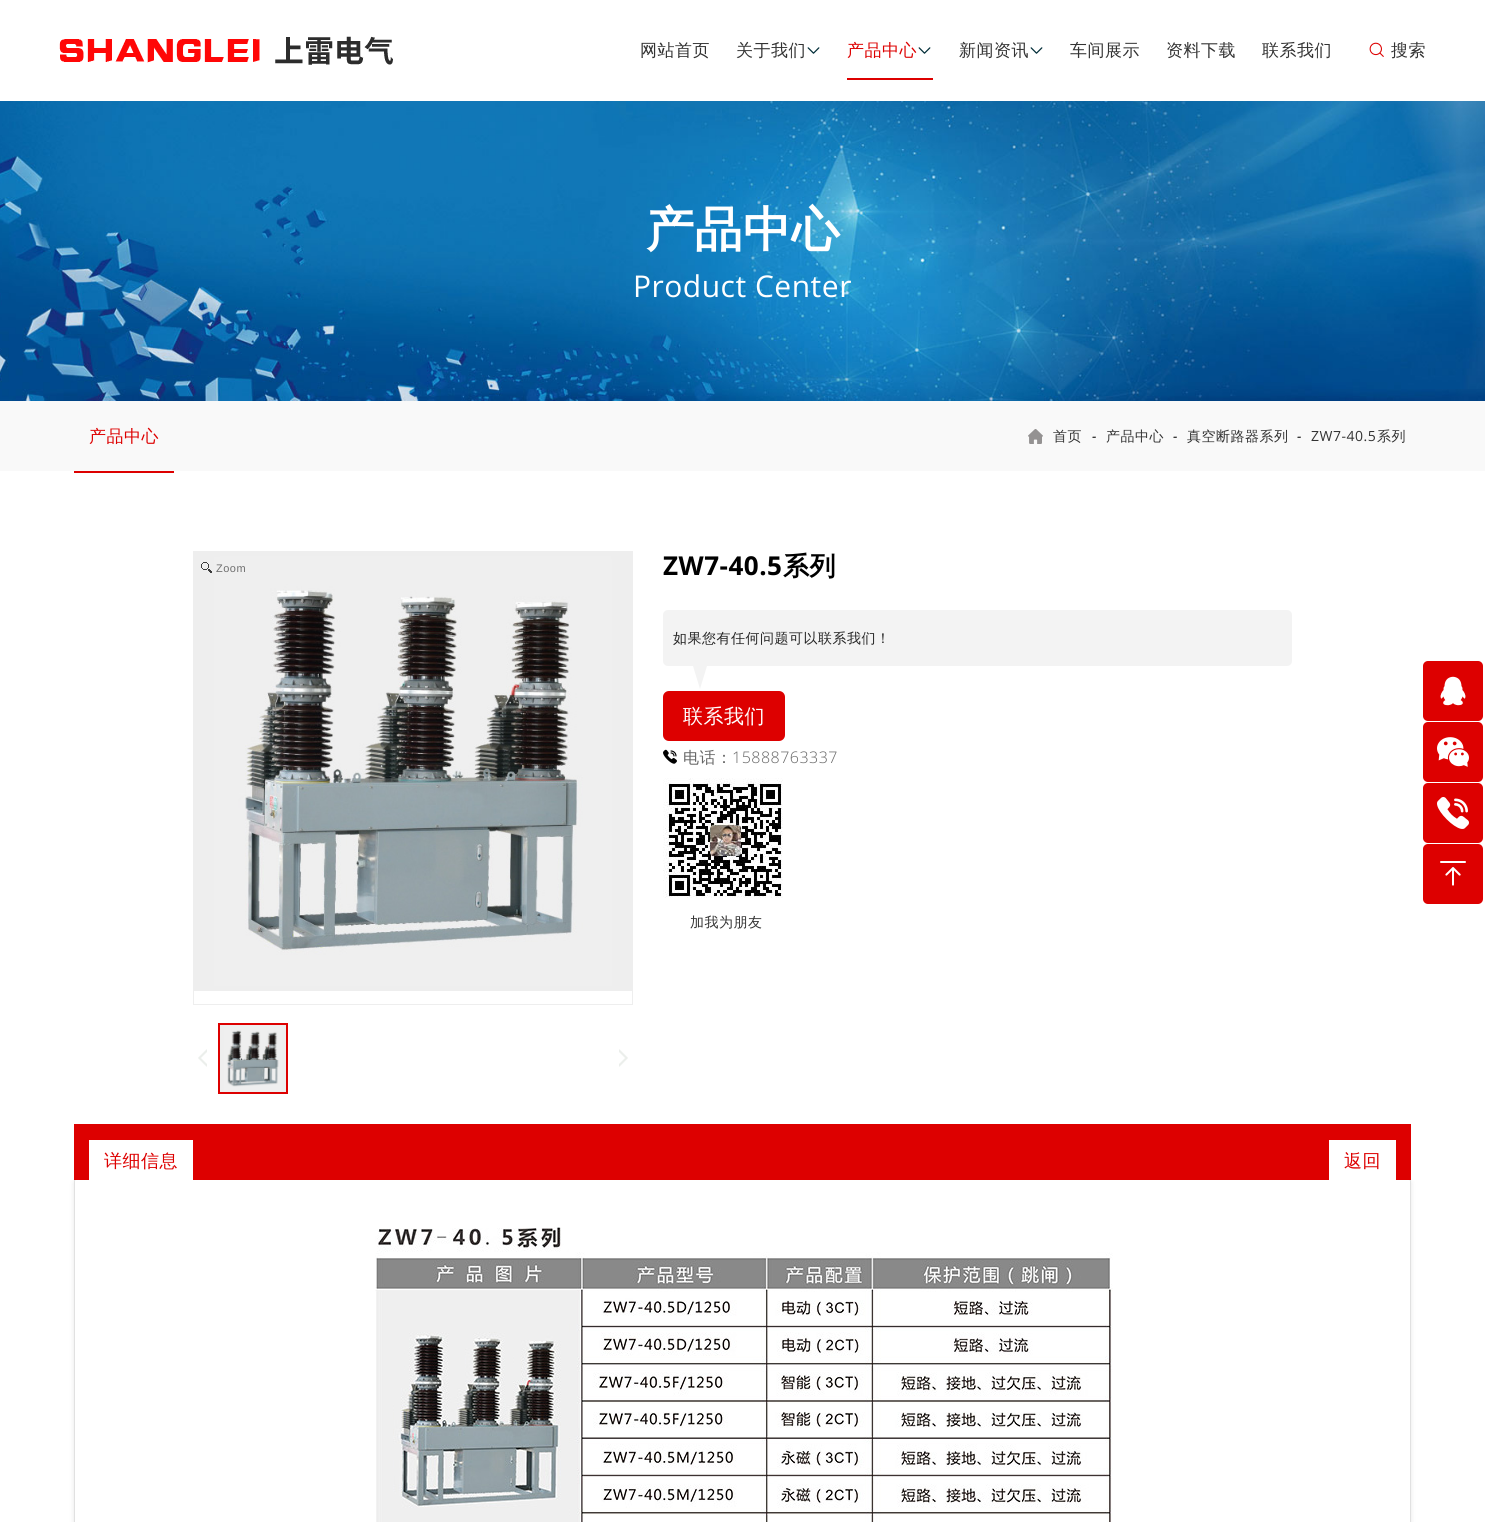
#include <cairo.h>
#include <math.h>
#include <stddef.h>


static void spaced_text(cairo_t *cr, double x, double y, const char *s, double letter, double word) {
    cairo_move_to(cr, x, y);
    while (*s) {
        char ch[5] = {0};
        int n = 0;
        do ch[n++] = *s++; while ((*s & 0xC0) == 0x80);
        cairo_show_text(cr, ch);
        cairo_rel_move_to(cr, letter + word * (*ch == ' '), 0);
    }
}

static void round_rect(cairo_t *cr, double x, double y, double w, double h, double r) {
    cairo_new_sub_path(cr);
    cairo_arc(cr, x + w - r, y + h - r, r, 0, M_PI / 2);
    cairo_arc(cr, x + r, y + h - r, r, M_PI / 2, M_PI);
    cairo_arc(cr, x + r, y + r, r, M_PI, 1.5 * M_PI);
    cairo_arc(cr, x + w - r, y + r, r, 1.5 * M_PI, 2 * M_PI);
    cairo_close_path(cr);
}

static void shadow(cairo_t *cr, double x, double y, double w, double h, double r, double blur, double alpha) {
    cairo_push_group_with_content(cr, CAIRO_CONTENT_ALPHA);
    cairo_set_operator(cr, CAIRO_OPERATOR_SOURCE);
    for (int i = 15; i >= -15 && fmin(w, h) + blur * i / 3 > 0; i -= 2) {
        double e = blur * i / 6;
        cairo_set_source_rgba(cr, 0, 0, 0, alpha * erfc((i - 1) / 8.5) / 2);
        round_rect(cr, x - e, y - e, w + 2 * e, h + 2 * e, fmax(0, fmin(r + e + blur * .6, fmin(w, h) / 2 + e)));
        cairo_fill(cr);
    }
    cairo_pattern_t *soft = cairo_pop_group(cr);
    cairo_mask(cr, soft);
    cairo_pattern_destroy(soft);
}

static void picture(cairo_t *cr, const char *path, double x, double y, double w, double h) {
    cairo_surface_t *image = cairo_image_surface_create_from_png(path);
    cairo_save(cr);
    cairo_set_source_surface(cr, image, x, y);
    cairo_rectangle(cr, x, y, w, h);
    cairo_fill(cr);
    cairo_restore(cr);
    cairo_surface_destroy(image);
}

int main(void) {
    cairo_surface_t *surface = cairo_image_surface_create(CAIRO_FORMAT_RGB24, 1485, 1522);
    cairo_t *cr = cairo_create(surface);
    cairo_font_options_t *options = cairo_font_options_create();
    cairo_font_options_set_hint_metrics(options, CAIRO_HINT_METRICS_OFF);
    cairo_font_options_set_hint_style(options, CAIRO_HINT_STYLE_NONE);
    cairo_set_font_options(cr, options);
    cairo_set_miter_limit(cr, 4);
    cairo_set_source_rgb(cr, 1, 1, 1);
    cairo_paint(cr);
    picture(cr, "img1.png", 59, 36, 334, 29);
    cairo_select_font_face(cr, "WenQuanYi Zen Hei Medium", CAIRO_FONT_SLANT_NORMAL, CAIRO_FONT_WEIGHT_NORMAL);
    cairo_set_font_size(cr, 17);
    cairo_set_source_rgb(cr, 0.2, 0.2, 0.2);
    spaced_text(cr, 640, 56, "网站首页", 0.5, 0);
    spaced_text(cr, 736, 56, "关于我们", 0.5, 0);
    picture(cr, "img2.png", 807, 47, 13, 7);
    cairo_set_source_rgb(cr, 0.867, 0, 0);
    spaced_text(cr, 847, 56, "产品中心", 0.5, 0);
    picture(cr, "img2.png", 918, 47, 13, 7);
    cairo_rectangle(cr, 847, 78, 86, 2);
    cairo_fill(cr);
    cairo_set_source_rgb(cr, 0.2, 0.2, 0.2);
    spaced_text(cr, 959, 56, "新闻资讯", 0.5, 0);
    picture(cr, "img2.png", 1030, 47, 13, 7);
    spaced_text(cr, 1070, 56, "车间展示", 0.5, 0);
    spaced_text(cr, 1166, 56, "资料下载", 0.5, 0);
    spaced_text(cr, 1262, 56, "联系我们", 0.5, 0);
    picture(cr, "img3.png", 1369, 42, 15, 15);
    spaced_text(cr, 1391, 56, "搜索", 0.5, 0);
    picture(cr, "img4.png", 0, 101, 1485, 300);
    cairo_select_font_face(cr, "WenQuanYi Zen Hei", CAIRO_FONT_SLANT_NORMAL, CAIRO_FONT_WEIGHT_BOLD);
    cairo_set_font_size(cr, 48);
    cairo_set_source_rgb(cr, 1, 1, 1);
    spaced_text(cr, 646, 246, "产品中心", 0.5, 0);
    cairo_select_font_face(cr, "Open Sans", CAIRO_FONT_SLANT_NORMAL, CAIRO_FONT_WEIGHT_NORMAL);
    cairo_set_font_size(cr, 30);
    spaced_text(cr, 633, 297, "Product Center", 0.5, 0);
    cairo_set_source_rgb(cr, 0.976, 0.976, 0.976);
    cairo_rectangle(cr, 0, 401, 1485, 70);
    cairo_fill(cr);
    cairo_set_source_rgb(cr, 0.867, 0, 0);
    cairo_rectangle(cr, 74, 471, 100, 2);
    cairo_fill(cr);
    cairo_select_font_face(cr, "WenQuanYi Zen Hei Medium", CAIRO_FONT_SLANT_NORMAL, CAIRO_FONT_WEIGHT_NORMAL);
    cairo_set_font_size(cr, 17);
    spaced_text(cr, 89, 442, "产品中心", 0.5, 0);
    picture(cr, "img5.png", 1028, 429, 15, 15);
    cairo_set_font_size(cr, 14);
    cairo_set_source_rgb(cr, 0.2, 0.2, 0.2);
    spaced_text(cr, 1053, 441, "首页", 0.5, 0);
    cairo_select_font_face(cr, "Open Sans", CAIRO_FONT_SLANT_ITALIC, CAIRO_FONT_WEIGHT_NORMAL);
    cairo_set_source_rgb(cr, 0, 0, 0);
    spaced_text(cr, 1092, 441, "-", 0.5, 0);
    cairo_select_font_face(cr, "WenQuanYi Zen Hei Medium", CAIRO_FONT_SLANT_NORMAL, CAIRO_FONT_WEIGHT_NORMAL);
    cairo_set_source_rgb(cr, 0.2, 0.2, 0.2);
    spaced_text(cr, 1106, 441, "产品中心", 0.5, 0);
    cairo_select_font_face(cr, "Open Sans", CAIRO_FONT_SLANT_ITALIC, CAIRO_FONT_WEIGHT_NORMAL);
    cairo_set_source_rgb(cr, 0, 0, 0);
    spaced_text(cr, 1173, 441, "-", 0.5, 0);
    cairo_select_font_face(cr, "WenQuanYi Zen Hei Medium", CAIRO_FONT_SLANT_NORMAL, CAIRO_FONT_WEIGHT_NORMAL);
    cairo_set_source_rgb(cr, 0.2, 0.2, 0.2);
    spaced_text(cr, 1187, 441, "真空断路器系列", 0.5, 0);
    cairo_select_font_face(cr, "Open Sans", CAIRO_FONT_SLANT_ITALIC, CAIRO_FONT_WEIGHT_NORMAL);
    cairo_set_source_rgb(cr, 0, 0, 0);
    spaced_text(cr, 1297, 441, "-", 0.5, 0);
    cairo_select_font_face(cr, "Open Sans", CAIRO_FONT_SLANT_NORMAL, CAIRO_FONT_WEIGHT_NORMAL);
    cairo_set_source_rgb(cr, 0.2, 0.2, 0.2);
    spaced_text(cr, 1311, 441, "ZW7-40.5", 0.5, 0);
    cairo_select_font_face(cr, "WenQuanYi Zen Hei Medium", CAIRO_FONT_SLANT_NORMAL, CAIRO_FONT_WEIGHT_NORMAL);
    spaced_text(cr, 1377, 441, "系列", 0.5, 0);
    cairo_rectangle(cr, 193.5, 551.5, 439, 453);
    cairo_set_source_rgb(cr, 0.933, 0.933, 0.933);
    cairo_set_line_width(cr, 1);
    cairo_stroke(cr);
    picture(cr, "img6.png", 194, 552, 438, 439);
    picture(cr, "img7.png", 201, 562, 11, 11);
    cairo_select_font_face(cr, "Liberation Sans", CAIRO_FONT_SLANT_NORMAL, CAIRO_FONT_WEIGHT_NORMAL);
    cairo_set_font_size(cr, 11);
    cairo_set_source_rgb(cr, 0.435, 0.435, 0.435);
    spaced_text(cr, 216, 572, "Zoom", 0.5, 0);
    picture(cr, "img8.png", 198, 1049, 9, 18);
    cairo_rectangle(cr, 219, 1024, 68, 69);
    cairo_set_source_rgb(cr, 0.867, 0, 0);
    cairo_set_line_width(cr, 2);
    cairo_stroke(cr);
    picture(cr, "img9.png", 220, 1025, 66, 67);
    picture(cr, "img10.png", 619, 1049, 9, 18);
    cairo_select_font_face(cr, "Open Sans", CAIRO_FONT_SLANT_NORMAL, CAIRO_FONT_WEIGHT_BOLD);
    cairo_set_font_size(cr, 26);
    cairo_set_source_rgb(cr, 0, 0, 0);
    spaced_text(cr, 663, 575, "ZW7-40.5", 0.5, 0);
    cairo_select_font_face(cr, "WenQuanYi Zen Hei", CAIRO_FONT_SLANT_NORMAL, CAIRO_FONT_WEIGHT_BOLD);
    spaced_text(cr, 783, 575, "系列", 0.5, 0);
    cairo_set_source_rgb(cr, 0.953, 0.953, 0.953);
    round_rect(cr, 663, 610, 629, 56, 5);
    cairo_fill(cr);
    cairo_select_font_face(cr, "WenQuanYi Zen Hei Medium", CAIRO_FONT_SLANT_NORMAL, CAIRO_FONT_WEIGHT_NORMAL);
    cairo_set_font_size(cr, 14);
    cairo_set_source_rgb(cr, 0.145, 0.145, 0.145);
    spaced_text(cr, 673, 643, "如果您有任何问题可以联系我们！", 0.5, 0);
    cairo_set_source_rgb(cr, 0.953, 0.953, 0.953);
    cairo_new_path(cr);
    cairo_move_to(cr, 693, 666);
    cairo_line_to(cr, 707, 666);
    cairo_line_to(cr, 700, 689);
    cairo_close_path(cr);
    cairo_fill(cr);
    cairo_set_source_rgb(cr, 0.867, 0, 0);
    round_rect(cr, 663, 691, 122, 50, 6);
    cairo_fill(cr);
    cairo_set_font_size(cr, 20);
    cairo_set_source_rgb(cr, 1, 1, 1);
    spaced_text(cr, 683, 723, "联系我们", 0.5, 0);
    picture(cr, "img11.png", 663, 749, 14, 15);
    cairo_set_font_size(cr, 16);
    cairo_set_source_rgb(cr, 0.4, 0.4, 0.4);
    spaced_text(cr, 683, 763, "电话：", 0.5, 0);
    cairo_select_font_face(cr, "Open Sans Light", CAIRO_FONT_SLANT_NORMAL, CAIRO_FONT_WEIGHT_NORMAL);
    spaced_text(cr, 732, 763, "15888763337", 0.5, 0);
    picture(cr, "img12.png", 663, 778, 120, 120);
    cairo_select_font_face(cr, "WenQuanYi Zen Hei Medium", CAIRO_FONT_SLANT_NORMAL, CAIRO_FONT_WEIGHT_NORMAL);
    cairo_set_font_size(cr, 14);
    cairo_set_source_rgb(cr, 0.2, 0.2, 0.2);
    spaced_text(cr, 690, 927, "加我为朋友", 0.5, 0);
    cairo_save(cr);
    cairo_set_fill_rule(cr, CAIRO_FILL_RULE_EVEN_ODD);
    cairo_new_path(cr);
    cairo_move_to(cr, 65, 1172);
    cairo_line_to(cr, 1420, 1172);
    cairo_line_to(cr, 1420, 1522);
    cairo_line_to(cr, 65, 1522);
    cairo_close_path(cr);
    cairo_move_to(cr, 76, 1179);
    cairo_line_to(cr, 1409, 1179);
    cairo_curve_to(cr, 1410, 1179, 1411, 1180, 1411, 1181);
    cairo_line_to(cr, 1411, 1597);
    cairo_curve_to(cr, 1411, 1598, 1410, 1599, 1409, 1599);
    cairo_line_to(cr, 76, 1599);
    cairo_curve_to(cr, 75, 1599, 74, 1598, 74, 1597);
    cairo_line_to(cr, 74, 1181);
    cairo_curve_to(cr, 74, 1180, 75, 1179, 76, 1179);
    cairo_close_path(cr);
    cairo_clip(cr);
    cairo_set_source_rgb(cr, 0, 0, 0);
    shadow(cr, 74, 1181, 1337, 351, 2, 2.5, 0.1);
    cairo_restore(cr);
    round_rect(cr, 74.5, 1179.5, 1336, 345, 1.5);
    cairo_set_source_rgb(cr, 0.882, 0.882, 0.882);
    cairo_set_line_width(cr, 1);
    cairo_stroke(cr);
    cairo_set_source_rgb(cr, 0.867, 0, 0);
    cairo_rectangle(cr, 74, 1124, 1337, 56);
    cairo_fill(cr);
    cairo_set_source_rgb(cr, 1, 1, 1);
    cairo_rectangle(cr, 89, 1140, 104, 40);
    cairo_fill(cr);
    cairo_set_font_size(cr, 18);
    cairo_set_source_rgb(cr, 0.867, 0, 0);
    spaced_text(cr, 104, 1167, "详细信息", 0.5, 0);
    cairo_set_source_rgb(cr, 1, 1, 1);
    cairo_rectangle(cr, 1329, 1140, 67, 40);
    cairo_fill(cr);
    cairo_set_source_rgb(cr, 0.867, 0, 0);
    spaced_text(cr, 1344, 1167, "返回", 0.5, 0);
    picture(cr, "img13.png", 375, 1227, 738, 295);
    round_rect(cr, 1423, 661, 60, 60, 5);
    cairo_fill(cr);
    picture(cr, "img14.png", 1440, 676, 26, 30);
    round_rect(cr, 1423, 722, 60, 60, 5);
    cairo_fill(cr);
    picture(cr, "img15.png", 1437, 737, 32, 30);
    round_rect(cr, 1423, 783, 60, 60, 5);
    cairo_fill(cr);
    picture(cr, "img16.png", 1437, 797, 32, 32);
    round_rect(cr, 1423, 844, 60, 60, 5);
    cairo_fill(cr);
    picture(cr, "img17.png", 1440, 861, 26, 25);
    cairo_surface_write_to_png(surface, "page.png");
    cairo_font_options_destroy(options);
    cairo_destroy(cr);
    cairo_surface_destroy(surface);
    return 0;
}
